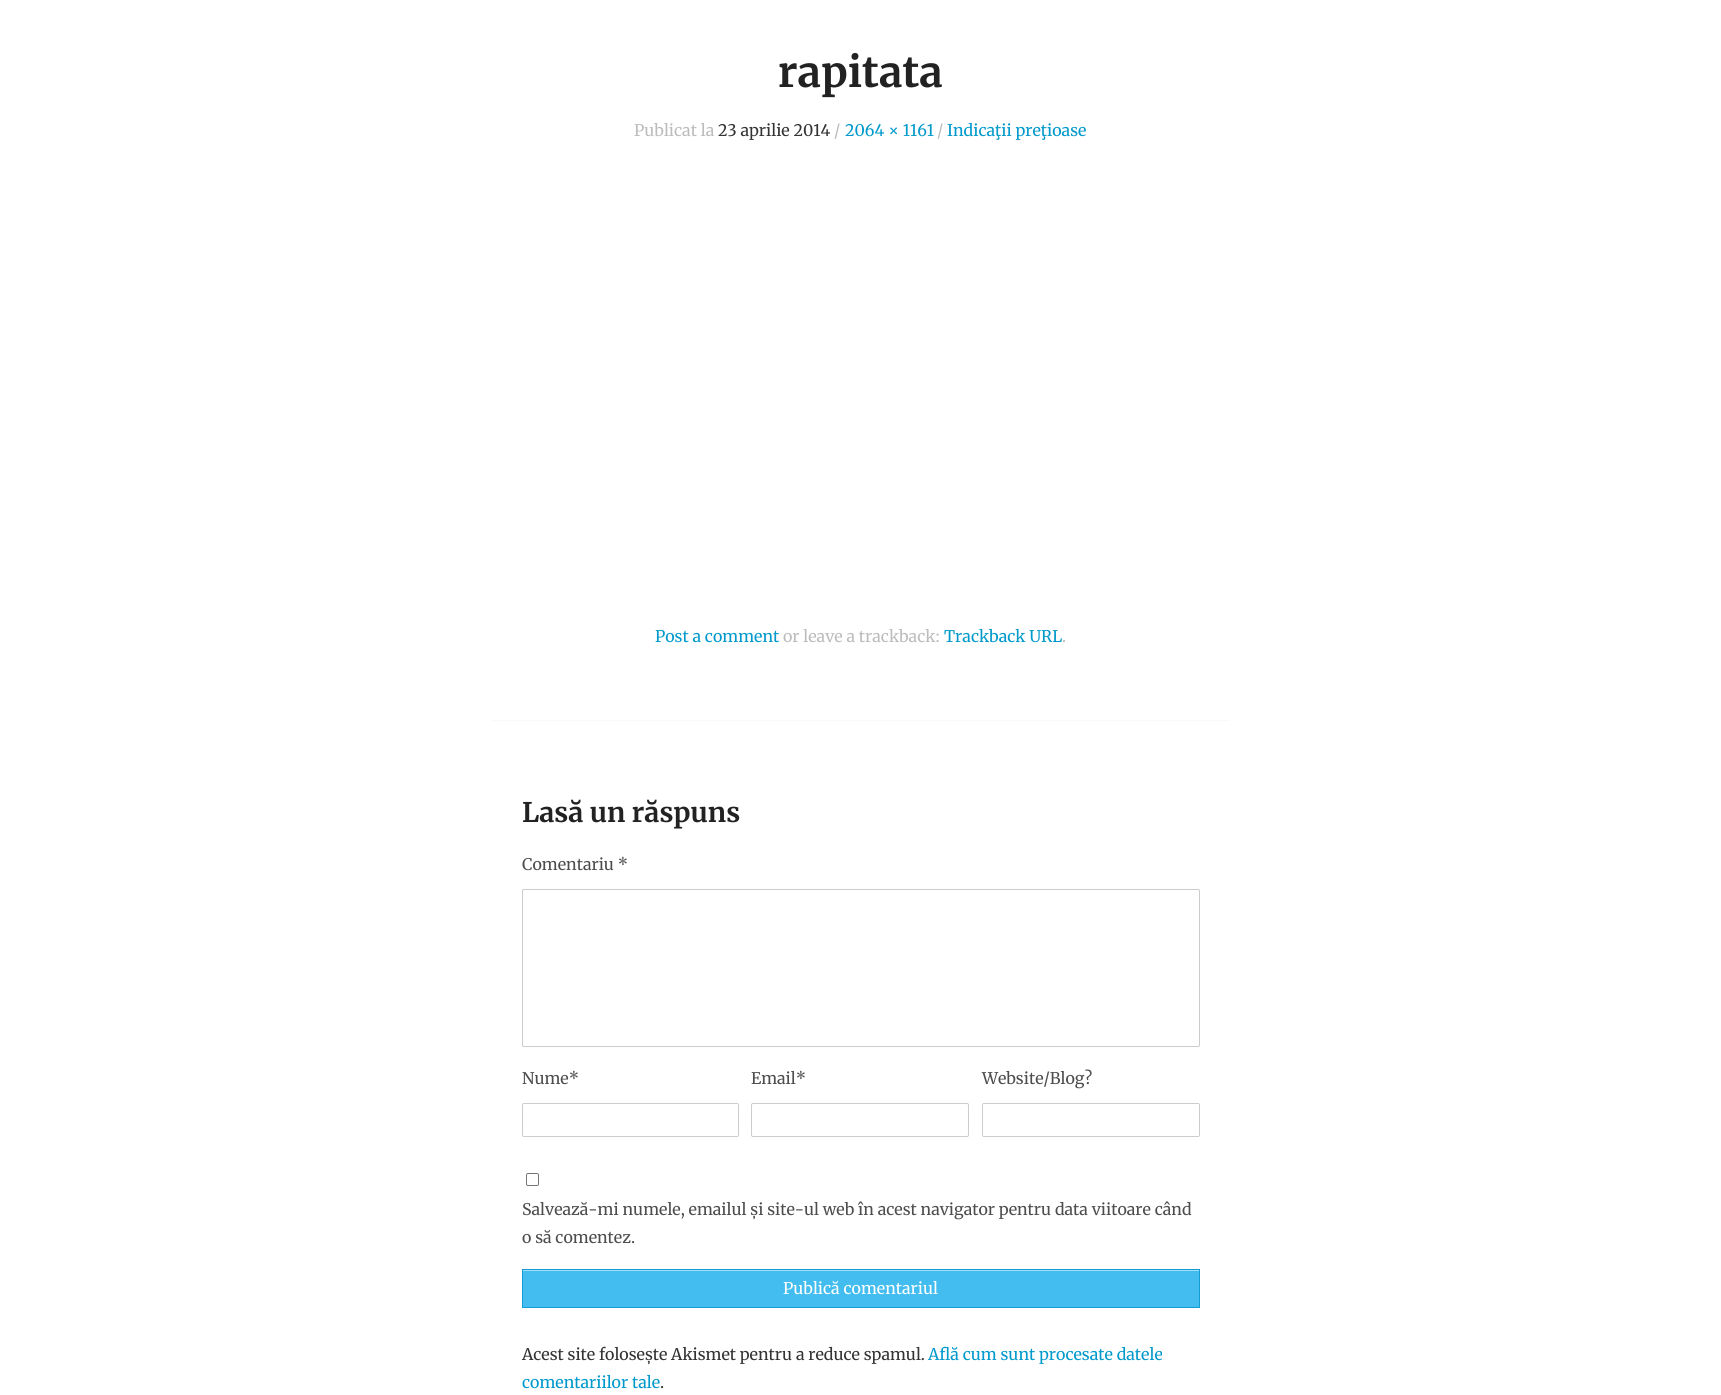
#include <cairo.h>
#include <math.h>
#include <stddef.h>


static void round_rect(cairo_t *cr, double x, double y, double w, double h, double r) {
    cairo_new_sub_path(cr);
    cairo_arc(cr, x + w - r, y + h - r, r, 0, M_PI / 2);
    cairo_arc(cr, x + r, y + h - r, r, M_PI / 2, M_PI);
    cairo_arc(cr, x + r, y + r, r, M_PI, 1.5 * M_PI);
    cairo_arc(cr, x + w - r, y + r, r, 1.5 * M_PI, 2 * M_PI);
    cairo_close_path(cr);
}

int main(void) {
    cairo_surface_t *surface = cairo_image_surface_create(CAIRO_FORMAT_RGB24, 1721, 1395);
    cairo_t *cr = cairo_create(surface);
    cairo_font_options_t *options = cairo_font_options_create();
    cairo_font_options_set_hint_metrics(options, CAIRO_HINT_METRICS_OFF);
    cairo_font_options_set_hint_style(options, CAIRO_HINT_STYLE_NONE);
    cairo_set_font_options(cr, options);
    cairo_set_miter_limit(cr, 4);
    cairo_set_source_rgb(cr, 1, 1, 1);
    cairo_paint(cr);
    cairo_select_font_face(cr, "Merriweather", CAIRO_FONT_SLANT_NORMAL, CAIRO_FONT_WEIGHT_BOLD);
    cairo_set_font_size(cr, 42);
    cairo_set_source_rgb(cr, 0.133, 0.133, 0.133);
    cairo_move_to(cr, 778, 87);
    cairo_show_text(cr, "rapitata");
    cairo_select_font_face(cr, "Merriweather", CAIRO_FONT_SLANT_NORMAL, CAIRO_FONT_WEIGHT_NORMAL);
    cairo_set_font_size(cr, 16);
    cairo_set_source_rgb(cr, 0.737, 0.737, 0.737);
    cairo_move_to(cr, 634, 136);
    cairo_show_text(cr, "Publicat la");
    cairo_set_source_rgb(cr, 0.2, 0.2, 0.2);
    cairo_move_to(cr, 718, 136);
    cairo_show_text(cr, "23 aprilie 2014");
    cairo_set_source_rgb(cr, 0.737, 0.737, 0.737);
    cairo_move_to(cr, 834, 136);
    cairo_show_text(cr, "/");
    cairo_set_source_rgb(cr, 0, 0.6, 0.8);
    cairo_move_to(cr, 845, 136);
    cairo_show_text(cr, "2064 × 1161");
    cairo_set_source_rgb(cr, 0.737, 0.737, 0.737);
    cairo_move_to(cr, 937, 136);
    cairo_show_text(cr, "/");
    cairo_set_source_rgb(cr, 0, 0.6, 0.8);
    cairo_move_to(cr, 947, 136);
    cairo_show_text(cr, "Indicaţii preţioase");
    cairo_move_to(cr, 655, 642);
    cairo_show_text(cr, "Post a comment");
    cairo_set_source_rgb(cr, 0.737, 0.737, 0.737);
    cairo_move_to(cr, 783, 642);
    cairo_show_text(cr, "or leave a trackback:");
    cairo_set_source_rgb(cr, 0, 0.6, 0.8);
    cairo_move_to(cr, 944, 642);
    cairo_show_text(cr, "Trackback URL");
    cairo_set_source_rgb(cr, 0.737, 0.737, 0.737);
    cairo_move_to(cr, 1062, 642);
    cairo_show_text(cr, ".");
    cairo_set_source_rgb(cr, 0.973, 0.973, 0.973);
    cairo_rectangle(cr, 492, 720, 738, 1);
    cairo_fill(cr);
    cairo_select_font_face(cr, "Merriweather", CAIRO_FONT_SLANT_NORMAL, CAIRO_FONT_WEIGHT_BOLD);
    cairo_set_font_size(cr, 27);
    cairo_set_source_rgb(cr, 0.133, 0.133, 0.133);
    cairo_move_to(cr, 522, 822);
    cairo_show_text(cr, "Lasă un răspuns");
    cairo_select_font_face(cr, "Merriweather", CAIRO_FONT_SLANT_NORMAL, CAIRO_FONT_WEIGHT_NORMAL);
    cairo_set_font_size(cr, 16);
    cairo_set_source_rgb(cr, 0.302, 0.302, 0.302);
    cairo_move_to(cr, 522, 870);
    cairo_show_text(cr, "Comentariu *");
    round_rect(cr, 522.5, 889.5, 677, 157, 1.5);
    cairo_set_source_rgb(cr, 0.8, 0.8, 0.8);
    cairo_set_line_width(cr, 1);
    cairo_stroke(cr);
    cairo_set_source_rgb(cr, 0.302, 0.302, 0.302);
    cairo_move_to(cr, 522, 1084);
    cairo_show_text(cr, "Nume*");
    round_rect(cr, 522.5, 1103.5, 216, 33, 1.5);
    cairo_set_source_rgb(cr, 0.8, 0.8, 0.8);
    cairo_stroke(cr);
    cairo_set_source_rgb(cr, 0.302, 0.302, 0.302);
    cairo_move_to(cr, 751, 1084);
    cairo_show_text(cr, "Email*");
    round_rect(cr, 751.5, 1103.5, 217, 33, 1.5);
    cairo_set_source_rgb(cr, 0.8, 0.8, 0.8);
    cairo_stroke(cr);
    cairo_set_source_rgb(cr, 0.302, 0.302, 0.302);
    cairo_move_to(cr, 982, 1084);
    cairo_show_text(cr, "Website/Blog?");
    round_rect(cr, 982.5, 1103.5, 217, 33, 1.5);
    cairo_set_source_rgb(cr, 0.8, 0.8, 0.8);
    cairo_stroke(cr);
    round_rect(cr, 526.5, 1173.5, 12, 12, 1.5);
    cairo_set_source_rgb(cr, 0.463, 0.463, 0.463);
    cairo_stroke(cr);
    cairo_set_source_rgb(cr, 0.302, 0.302, 0.302);
    cairo_move_to(cr, 522, 1215);
    cairo_show_text(cr, "Salvează-mi numele, emailul și site-ul web în acest navigator pentru data viitoare când");
    cairo_move_to(cr, 522, 1243);
    cairo_show_text(cr, "o să comentez.");
    cairo_set_source_rgb(cr, 0.263, 0.741, 0.937);
    cairo_rectangle(cr, 523, 1271, 676, 36);
    cairo_fill(cr);
    cairo_set_source_rgb(cr, 0.631, 0.871, 0.969);
    cairo_rectangle(cr, 523, 1270, 676, 1);
    cairo_fill(cr);
    cairo_rectangle(cr, 522.5, 1269.5, 677, 38);
    cairo_set_source_rgb(cr, 0.071, 0.608, 0.831);
    cairo_stroke(cr);
    cairo_set_source_rgb(cr, 1, 1, 1);
    cairo_move_to(cr, 783, 1294);
    cairo_show_text(cr, "Publică comentariul");
    cairo_set_source_rgb(cr, 0.2, 0.2, 0.2);
    cairo_move_to(cr, 522, 1360);
    cairo_show_text(cr, "Acest site folosește Akismet pentru a reduce spamul.");
    cairo_set_source_rgb(cr, 0, 0.6, 0.8);
    cairo_move_to(cr, 928, 1360);
    cairo_show_text(cr, "Află cum sunt procesate datele");
    cairo_move_to(cr, 522, 1388);
    cairo_show_text(cr, "comentariilor tale");
    cairo_set_source_rgb(cr, 0.2, 0.2, 0.2);
    cairo_move_to(cr, 660, 1388);
    cairo_show_text(cr, ".");
    cairo_surface_write_to_png(surface, "page.png");
    cairo_font_options_destroy(options);
    cairo_destroy(cr);
    cairo_surface_destroy(surface);
    return 0;
}
